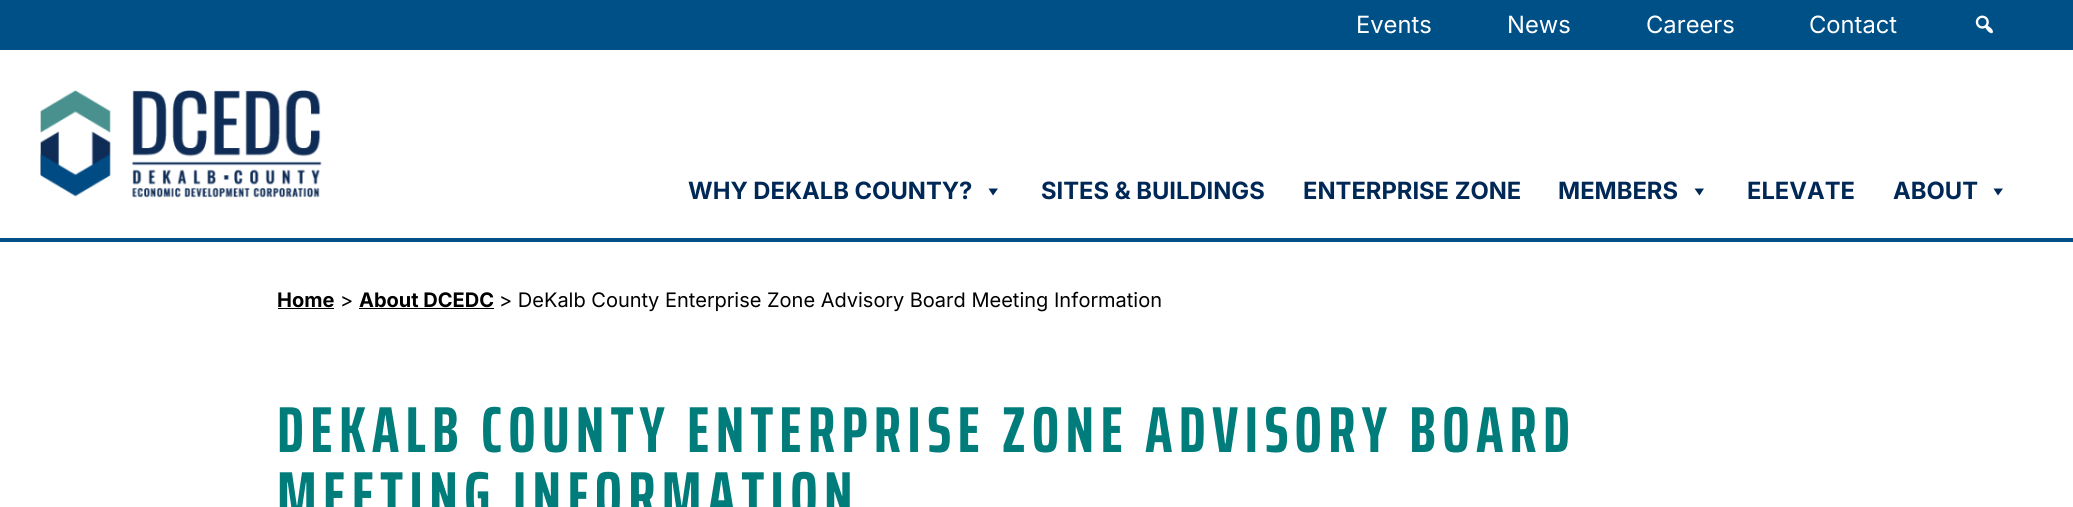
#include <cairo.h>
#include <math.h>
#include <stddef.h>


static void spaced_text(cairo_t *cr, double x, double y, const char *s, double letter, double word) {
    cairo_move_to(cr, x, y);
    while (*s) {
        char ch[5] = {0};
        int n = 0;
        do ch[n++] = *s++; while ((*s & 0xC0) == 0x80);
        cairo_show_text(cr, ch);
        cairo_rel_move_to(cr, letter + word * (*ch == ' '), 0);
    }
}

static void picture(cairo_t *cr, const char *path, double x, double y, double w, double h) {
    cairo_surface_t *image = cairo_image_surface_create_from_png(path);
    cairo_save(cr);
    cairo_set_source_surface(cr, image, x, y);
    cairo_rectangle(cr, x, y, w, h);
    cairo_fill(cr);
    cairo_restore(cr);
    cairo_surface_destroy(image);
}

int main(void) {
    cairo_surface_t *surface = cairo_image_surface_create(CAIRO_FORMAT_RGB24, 2073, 507);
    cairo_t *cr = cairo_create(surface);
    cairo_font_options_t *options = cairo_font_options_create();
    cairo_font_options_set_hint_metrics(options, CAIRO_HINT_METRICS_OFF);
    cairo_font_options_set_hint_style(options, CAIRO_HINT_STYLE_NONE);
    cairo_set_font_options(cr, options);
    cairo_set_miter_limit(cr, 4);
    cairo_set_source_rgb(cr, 1, 1, 1);
    cairo_paint(cr);
    cairo_set_source_rgb(cr, 0, 0.314, 0.533);
    cairo_rectangle(cr, 0, 0, 2073, 50);
    cairo_fill(cr);
    cairo_select_font_face(cr, "Inter", CAIRO_FONT_SLANT_NORMAL, CAIRO_FONT_WEIGHT_NORMAL);
    cairo_set_font_size(cr, 23.75);
    cairo_set_source_rgb(cr, 1, 1, 1);
    cairo_move_to(cr, 1356, 33);
    cairo_show_text(cr, "Events");
    cairo_move_to(cr, 1507, 33);
    cairo_show_text(cr, "News");
    cairo_move_to(cr, 1646, 33);
    cairo_show_text(cr, "Careers");
    cairo_move_to(cr, 1809, 33);
    cairo_show_text(cr, "Contact");
    picture(cr, "img1.png", 1975, 15, 18, 19);
    cairo_set_source_rgb(cr, 0, 0.314, 0.533);
    cairo_rectangle(cr, 0, 238, 2073, 4);
    cairo_fill(cr);
    picture(cr, "img2.png", 40, 90, 282, 108);
    cairo_select_font_face(cr, "Inter", CAIRO_FONT_SLANT_NORMAL, CAIRO_FONT_WEIGHT_BOLD);
    cairo_set_source_rgb(cr, 0, 0.157, 0.341);
    cairo_move_to(cr, 688, 199);
    cairo_show_text(cr, "WHY DEKALB COUNTY?");
    cairo_new_path(cr);
    cairo_move_to(cr, 998, 188.5);
    cairo_line_to(cr, 993, 195.5);
    cairo_line_to(cr, 988.5, 188.5);
    cairo_close_path(cr);
    cairo_fill(cr);
    cairo_move_to(cr, 1041, 199);
    cairo_show_text(cr, "SITES & BUILDINGS");
    cairo_move_to(cr, 1303, 199);
    cairo_show_text(cr, "ENTERPRISE ZONE");
    cairo_move_to(cr, 1558, 199);
    cairo_show_text(cr, "MEMBERS");
    cairo_new_path(cr);
    cairo_move_to(cr, 1704, 188.5);
    cairo_line_to(cr, 1699.5, 195.5);
    cairo_line_to(cr, 1694.5, 188.5);
    cairo_close_path(cr);
    cairo_fill(cr);
    cairo_move_to(cr, 1747, 199);
    cairo_show_text(cr, "ELEVATE");
    cairo_move_to(cr, 1893, 199);
    cairo_show_text(cr, "ABOUT");
    cairo_new_path(cr);
    cairo_move_to(cr, 2003, 188.5);
    cairo_line_to(cr, 1998, 195.5);
    cairo_line_to(cr, 1993.5, 188.5);
    cairo_close_path(cr);
    cairo_fill(cr);
    cairo_set_font_size(cr, 20);
    cairo_set_source_rgb(cr, 0, 0, 0);
    cairo_move_to(cr, 277, 307);
    cairo_show_text(cr, "Home");
    cairo_rectangle(cr, 278, 308, 56, 1);
    cairo_fill(cr);
    cairo_select_font_face(cr, "Inter", CAIRO_FONT_SLANT_NORMAL, CAIRO_FONT_WEIGHT_NORMAL);
    cairo_move_to(cr, 340, 307);
    cairo_show_text(cr, ">");
    cairo_select_font_face(cr, "Inter", CAIRO_FONT_SLANT_NORMAL, CAIRO_FONT_WEIGHT_BOLD);
    cairo_move_to(cr, 359, 307);
    cairo_show_text(cr, "About DCEDC");
    cairo_rectangle(cr, 359, 308, 135, 1);
    cairo_fill(cr);
    cairo_select_font_face(cr, "Inter", CAIRO_FONT_SLANT_NORMAL, CAIRO_FONT_WEIGHT_NORMAL);
    cairo_move_to(cr, 499, 307);
    cairo_show_text(cr, "> DeKalb County Enterprise Zone Advisory Board Meeting Information");
    cairo_select_font_face(cr, "Saira ExtraCondensed", CAIRO_FONT_SLANT_NORMAL, CAIRO_FONT_WEIGHT_BOLD);
    cairo_set_font_size(cr, 65);
    cairo_set_source_rgb(cr, 0, 0.486, 0.478);
    spaced_text(cr, 277, 452, "DEKALB COUNTY ENTERPRISE ZONE ADVISORY BOARD", 6.25, 0);
    spaced_text(cr, 277, 517, "MEETING INFORMATION", 6.25, 0);
    cairo_surface_write_to_png(surface, "page.png");
    cairo_font_options_destroy(options);
    cairo_destroy(cr);
    cairo_surface_destroy(surface);
    return 0;
}
